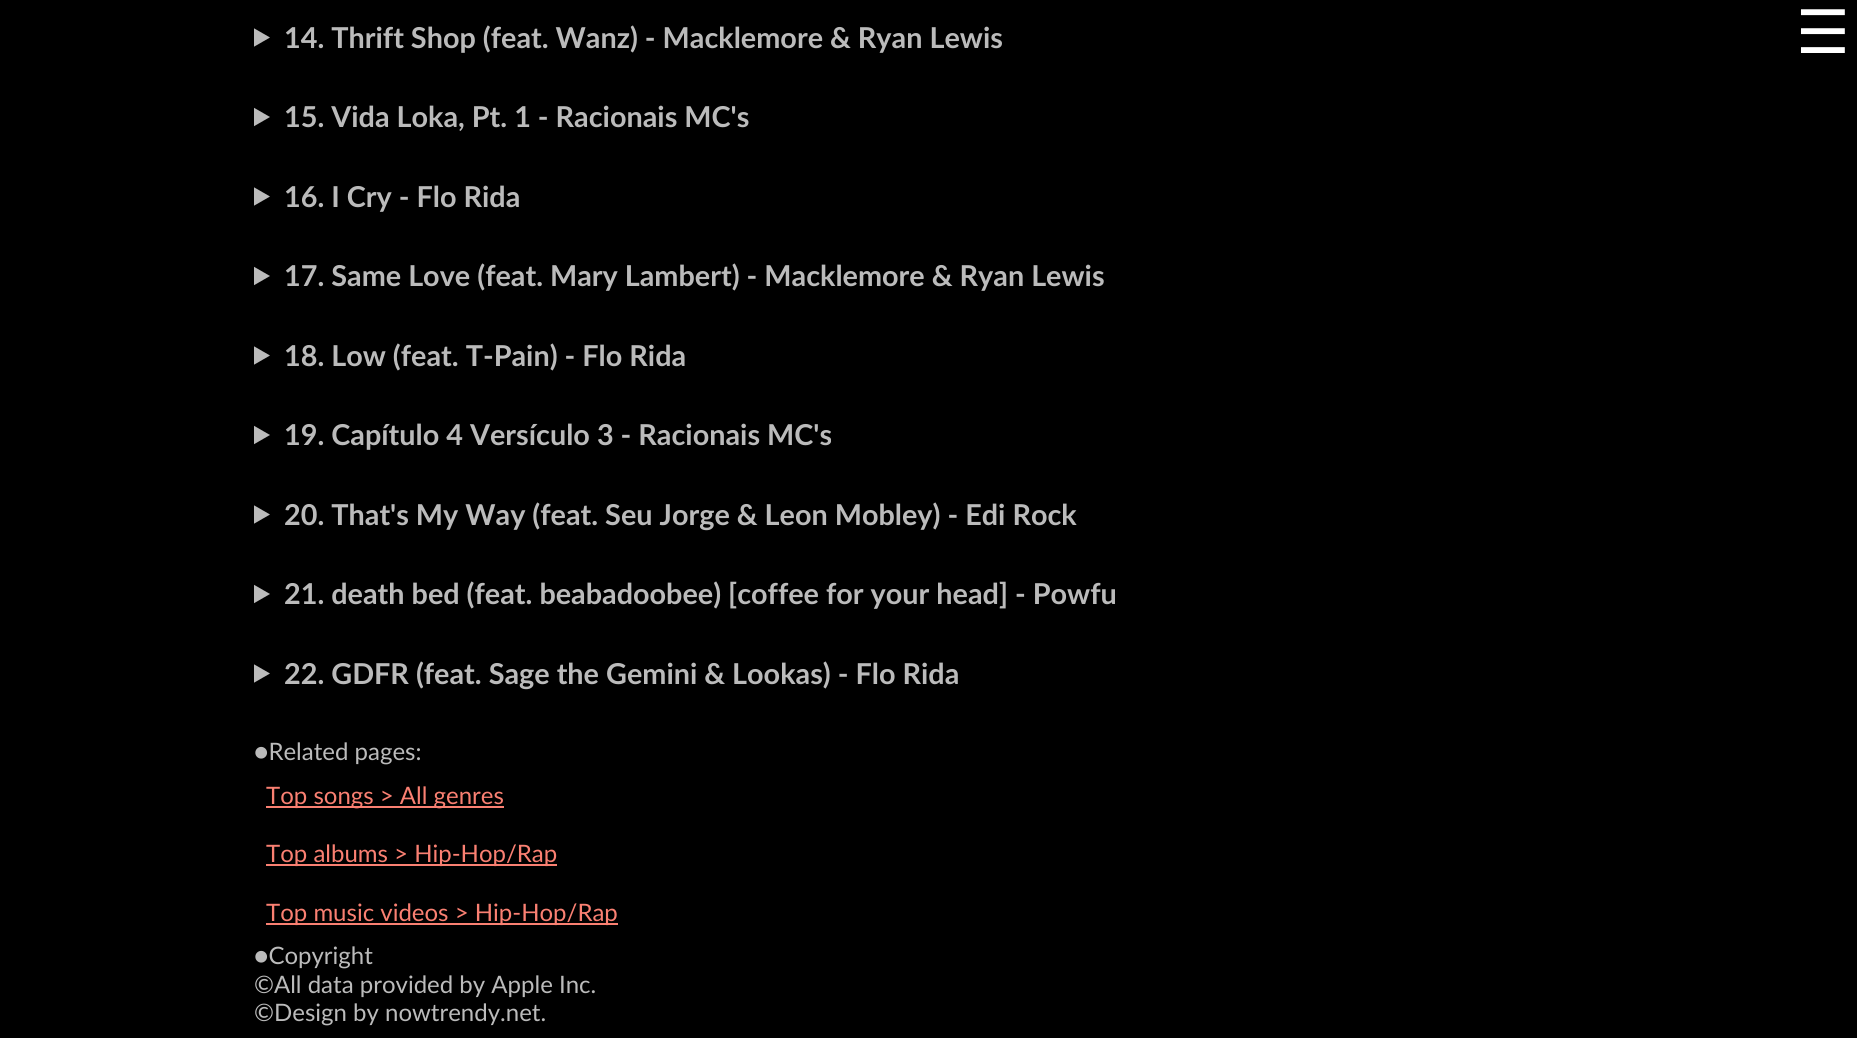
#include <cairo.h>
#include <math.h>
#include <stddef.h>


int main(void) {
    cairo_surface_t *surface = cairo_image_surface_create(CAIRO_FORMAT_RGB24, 1857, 1038);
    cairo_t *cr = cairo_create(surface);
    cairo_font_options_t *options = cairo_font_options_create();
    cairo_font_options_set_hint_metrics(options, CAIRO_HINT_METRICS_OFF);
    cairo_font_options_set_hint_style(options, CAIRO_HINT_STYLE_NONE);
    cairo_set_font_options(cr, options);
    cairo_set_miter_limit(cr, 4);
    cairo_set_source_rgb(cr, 0, 0, 0);
    cairo_paint(cr);
    cairo_save(cr);
    cairo_rectangle(cr, 254, 20, 1350, 34);
    cairo_clip(cr);
    cairo_set_source_rgb(cr, 0.733, 0.733, 0.733);
    cairo_new_path(cr);
    cairo_move_to(cr, 253.5, 28);
    cairo_line_to(cr, 270, 37.5);
    cairo_line_to(cr, 253.5, 47);
    cairo_close_path(cr);
    cairo_fill(cr);
    cairo_restore(cr);
    cairo_select_font_face(cr, "Lato", CAIRO_FONT_SLANT_NORMAL, CAIRO_FONT_WEIGHT_BOLD);
    cairo_set_font_size(cr, 28.8);
    cairo_set_source_rgb(cr, 0.733, 0.733, 0.733);
    cairo_move_to(cr, 284, 48);
    cairo_show_text(cr, "14. Thrift Shop (feat. Wanz) - Macklemore & Ryan Lewis");
    cairo_save(cr);
    cairo_rectangle(cr, 254, 99, 1350, 35);
    cairo_clip(cr);
    cairo_new_path(cr);
    cairo_move_to(cr, 253.5, 107.5);
    cairo_line_to(cr, 270, 117);
    cairo_line_to(cr, 253.5, 126.5);
    cairo_close_path(cr);
    cairo_fill(cr);
    cairo_restore(cr);
    cairo_move_to(cr, 284, 127);
    cairo_show_text(cr, "15. Vida Loka, Pt. 1 - Racionais MC's");
    cairo_save(cr);
    cairo_rectangle(cr, 254, 179, 1350, 34);
    cairo_clip(cr);
    cairo_new_path(cr);
    cairo_move_to(cr, 253.5, 187);
    cairo_line_to(cr, 270, 196.5);
    cairo_line_to(cr, 253.5, 206);
    cairo_close_path(cr);
    cairo_fill(cr);
    cairo_restore(cr);
    cairo_move_to(cr, 284, 207);
    cairo_show_text(cr, "16. I Cry - Flo Rida");
    cairo_save(cr);
    cairo_rectangle(cr, 254, 258, 1350, 35);
    cairo_clip(cr);
    cairo_new_path(cr);
    cairo_move_to(cr, 253.5, 266.5);
    cairo_line_to(cr, 270, 276);
    cairo_line_to(cr, 253.5, 285.5);
    cairo_close_path(cr);
    cairo_fill(cr);
    cairo_restore(cr);
    cairo_move_to(cr, 284, 286);
    cairo_show_text(cr, "17. Same Love (feat. Mary Lambert) - Macklemore & Ryan Lewis");
    cairo_save(cr);
    cairo_rectangle(cr, 254, 338, 1350, 34);
    cairo_clip(cr);
    cairo_new_path(cr);
    cairo_move_to(cr, 253.5, 346);
    cairo_line_to(cr, 270, 355.5);
    cairo_line_to(cr, 253.5, 365);
    cairo_close_path(cr);
    cairo_fill(cr);
    cairo_restore(cr);
    cairo_move_to(cr, 284, 366);
    cairo_show_text(cr, "18. Low (feat. T-Pain) - Flo Rida");
    cairo_save(cr);
    cairo_rectangle(cr, 254, 417, 1350, 35);
    cairo_clip(cr);
    cairo_new_path(cr);
    cairo_move_to(cr, 253.5, 425.5);
    cairo_line_to(cr, 270, 435);
    cairo_line_to(cr, 253.5, 444.5);
    cairo_close_path(cr);
    cairo_fill(cr);
    cairo_restore(cr);
    cairo_move_to(cr, 284, 445);
    cairo_show_text(cr, "19. Capítulo 4 Versículo 3 - Racionais MC's");
    cairo_save(cr);
    cairo_rectangle(cr, 254, 497, 1350, 34);
    cairo_clip(cr);
    cairo_new_path(cr);
    cairo_move_to(cr, 253.5, 505);
    cairo_line_to(cr, 270, 514.5);
    cairo_line_to(cr, 253.5, 524);
    cairo_close_path(cr);
    cairo_fill(cr);
    cairo_restore(cr);
    cairo_move_to(cr, 284, 525);
    cairo_show_text(cr, "20. That's My Way (feat. Seu Jorge & Leon Mobley) - Edi Rock");
    cairo_save(cr);
    cairo_rectangle(cr, 254, 576, 1350, 35);
    cairo_clip(cr);
    cairo_new_path(cr);
    cairo_move_to(cr, 253.5, 584.5);
    cairo_line_to(cr, 270, 594);
    cairo_line_to(cr, 253.5, 603.5);
    cairo_close_path(cr);
    cairo_fill(cr);
    cairo_restore(cr);
    cairo_move_to(cr, 284, 604);
    cairo_show_text(cr, "21. death bed (feat. beabadoobee) [coffee for your head] - Powfu");
    cairo_save(cr);
    cairo_rectangle(cr, 254, 656, 1350, 34);
    cairo_clip(cr);
    cairo_new_path(cr);
    cairo_move_to(cr, 253.5, 664);
    cairo_line_to(cr, 270, 673.5);
    cairo_line_to(cr, 253.5, 683);
    cairo_close_path(cr);
    cairo_fill(cr);
    cairo_restore(cr);
    cairo_move_to(cr, 284, 684);
    cairo_show_text(cr, "22. GDFR (feat. Sage the Gemini & Lookas) - Flo Rida");
    cairo_select_font_face(cr, "DejaVu Sans", CAIRO_FONT_SLANT_NORMAL, CAIRO_FONT_WEIGHT_NORMAL);
    cairo_set_font_size(cr, 60);
    cairo_set_source_rgb(cr, 1, 1, 1);
    cairo_move_to(cr, 1796, 53);
    cairo_show_text(cr, "☰");
    cairo_select_font_face(cr, "Lato", CAIRO_FONT_SLANT_NORMAL, CAIRO_FONT_WEIGHT_NORMAL);
    cairo_set_font_size(cr, 24);
    cairo_set_source_rgb(cr, 0.733, 0.733, 0.733);
    cairo_move_to(cr, 254, 760);
    cairo_show_text(cr, "●Related pages:");
    cairo_set_source_rgb(cr, 0.98, 0.502, 0.447);
    cairo_rectangle(cr, 266, 806, 238, 2);
    cairo_fill(cr);
    cairo_move_to(cr, 266, 804);
    cairo_show_text(cr, "Top songs > All genres");
    cairo_rectangle(cr, 266, 864, 291, 2);
    cairo_fill(cr);
    cairo_move_to(cr, 266, 862);
    cairo_show_text(cr, "Top albums > Hip-Hop/Rap");
    cairo_rectangle(cr, 266, 923, 352, 2);
    cairo_fill(cr);
    cairo_move_to(cr, 266, 921);
    cairo_show_text(cr, "Top music videos > Hip-Hop/Rap");
    cairo_set_source_rgb(cr, 0.733, 0.733, 0.733);
    cairo_move_to(cr, 254, 964);
    cairo_show_text(cr, "●Copyright");
    cairo_move_to(cr, 254, 993);
    cairo_show_text(cr, "©All data provided by Apple Inc.");
    cairo_move_to(cr, 254, 1021);
    cairo_show_text(cr, "©Design by nowtrendy.net.");
    cairo_surface_write_to_png(surface, "page.png");
    cairo_font_options_destroy(options);
    cairo_destroy(cr);
    cairo_surface_destroy(surface);
    return 0;
}
